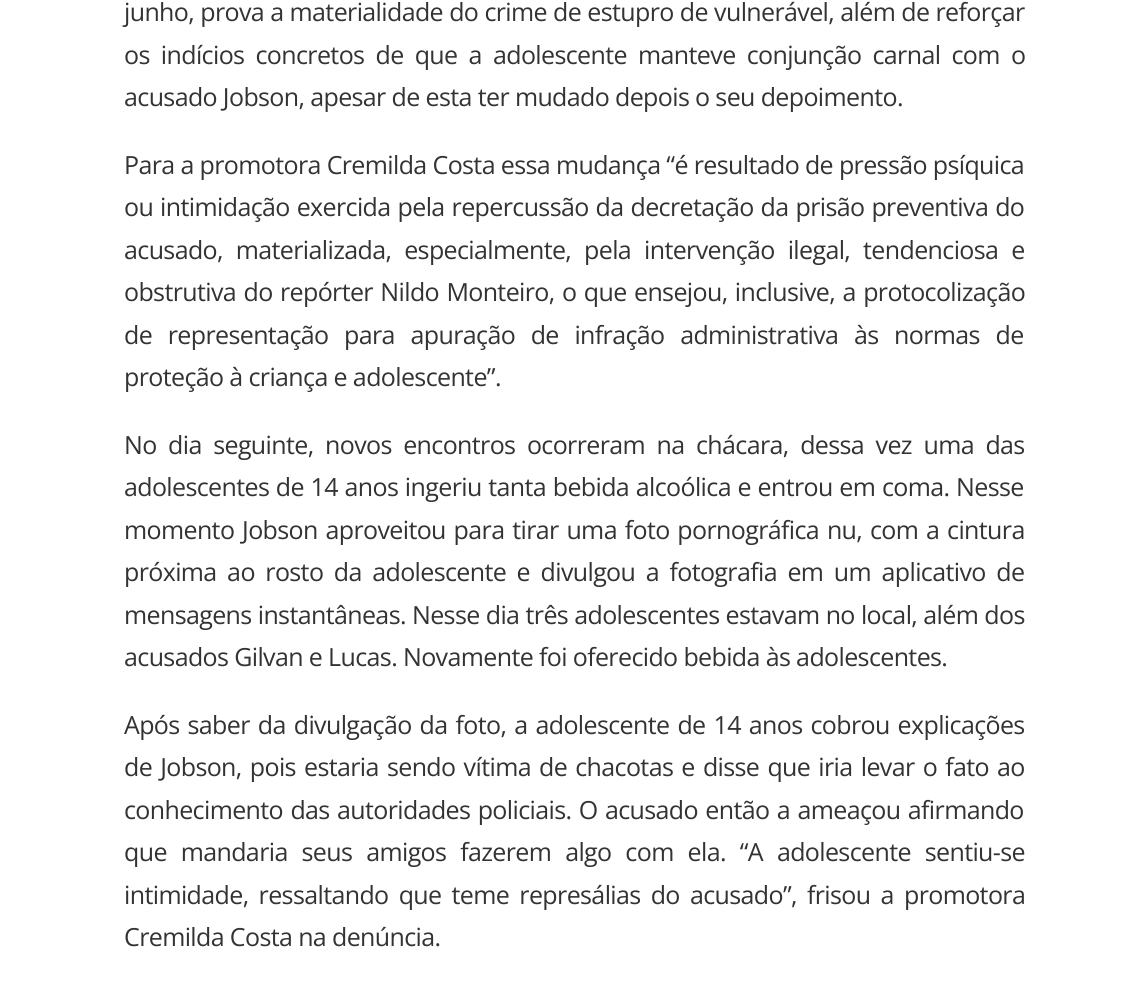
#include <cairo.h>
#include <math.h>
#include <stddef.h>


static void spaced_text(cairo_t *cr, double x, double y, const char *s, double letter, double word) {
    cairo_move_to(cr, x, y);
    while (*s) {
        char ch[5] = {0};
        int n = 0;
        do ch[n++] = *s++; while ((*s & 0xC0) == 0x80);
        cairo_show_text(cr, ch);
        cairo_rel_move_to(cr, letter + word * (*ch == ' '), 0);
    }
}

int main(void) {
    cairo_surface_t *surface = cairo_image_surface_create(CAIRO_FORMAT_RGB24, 1147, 982);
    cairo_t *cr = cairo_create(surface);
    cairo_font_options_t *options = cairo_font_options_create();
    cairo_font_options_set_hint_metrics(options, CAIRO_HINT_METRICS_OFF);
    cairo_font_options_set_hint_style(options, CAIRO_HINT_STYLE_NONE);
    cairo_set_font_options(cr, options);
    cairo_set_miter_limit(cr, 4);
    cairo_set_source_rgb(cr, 1, 1, 1);
    cairo_paint(cr);
    cairo_select_font_face(cr, "Open Sans", CAIRO_FONT_SLANT_NORMAL, CAIRO_FONT_WEIGHT_NORMAL);
    cairo_set_font_size(cr, 25);
    cairo_set_source_rgb(cr, 0.2, 0.2, 0.2);
    spaced_text(cr, 124, 21, "junho, prova a materialidade do crime de estupro de vulnerável, além de reforçar", -0.62, 0.25);
    spaced_text(cr, 124, 64, "os indícios concretos de que a adolescente manteve conjunção carnal com o", -0.62, 5.25);
    spaced_text(cr, 124, 106, "acusado Jobson, apesar de esta ter mudado depois o seu depoimento.", -0.62, 0);
    spaced_text(cr, 124, 174, "Para a promotora Cremilda Costa essa mudança “é resultado de pressão psíquica", -0.62, 0);
    spaced_text(cr, 124, 216, "ou intimidação exercida pela repercussão da decretação da prisão preventiva do", -0.62, 1.1);
    spaced_text(cr, 124, 259, "acusado, materializada, especialmente, pela intervenção ilegal, tendenciosa e", -0.62, 7);
    spaced_text(cr, 124, 301, "obstrutiva do repórter Nildo Monteiro, o que ensejou, inclusive, a protocolização", -0.62, 1.5);
    spaced_text(cr, 124, 344, "de representação para apuração de infração administrativa às normas de", -0.62, 9.75);
    spaced_text(cr, 124, 386, "proteção à criança e adolescente”.", -0.62, 0);
    spaced_text(cr, 124, 454, "No dia seguinte, novos encontros ocorreram na chácara, dessa vez uma das", -0.62, 5.6);
    spaced_text(cr, 124, 496, "adolescentes de 14 anos ingeriu tanta bebida alcoólica e entrou em coma. Nesse", -0.62, 0.75);
    spaced_text(cr, 124, 539, "momento Jobson aproveitou para tirar uma foto pornográfica nu, com a cintura", -0.62, 1.9);
    spaced_text(cr, 124, 581, "próxima ao rosto da adolescente e divulgou a fotografia em um aplicativo de", -0.62, 4.6);
    spaced_text(cr, 124, 624, "mensagens instantâneas. Nesse dia três adolescentes estavam no local, além dos", -0.62, 0.25);
    spaced_text(cr, 124, 666, "acusados Gilvan e Lucas. Novamente foi oferecido bebida às adolescentes.", -0.62, 0);
    spaced_text(cr, 124, 734, "Após saber da divulgação da foto, a adolescente de 14 anos cobrou explicações", -0.62, 2.1);
    spaced_text(cr, 124, 776, "de Jobson, pois estaria sendo vítima de chacotas e disse que iria levar o fato ao", -0.62, 2.25);
    spaced_text(cr, 124, 819, "conhecimento das autoridades policiais. O acusado então a ameaçou afirmando", -0.62, 1.5);
    spaced_text(cr, 124, 861, "que mandaria seus amigos fazerem algo com ela. “A adolescente sentiu-se", -0.62, 8);
    spaced_text(cr, 124, 904, "intimidade, ressaltando que teme represálias do acusado”, frisou a promotora", -0.62, 4.25);
    spaced_text(cr, 124, 946, "Cremilda Costa na denúncia.", -0.62, 0);
    cairo_surface_write_to_png(surface, "page.png");
    cairo_font_options_destroy(options);
    cairo_destroy(cr);
    cairo_surface_destroy(surface);
    return 0;
}
